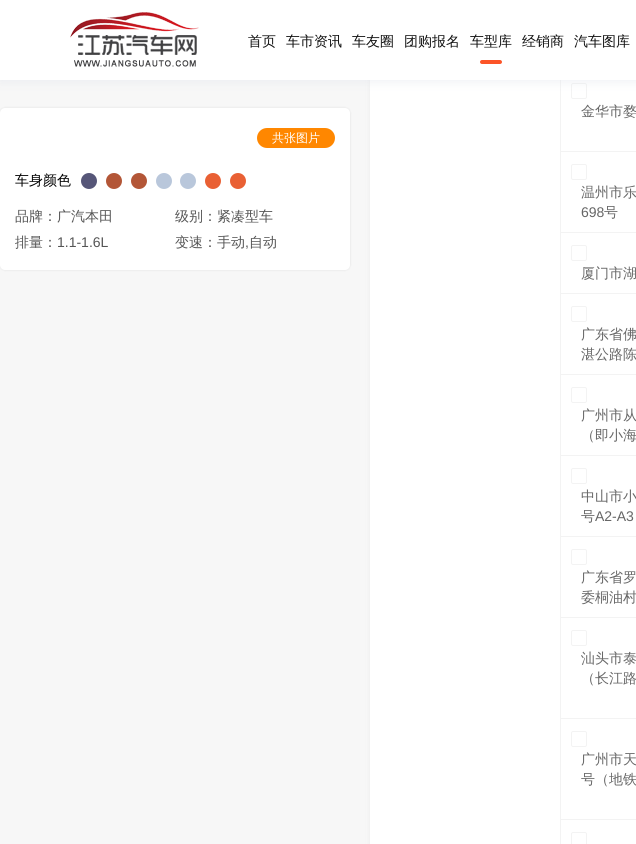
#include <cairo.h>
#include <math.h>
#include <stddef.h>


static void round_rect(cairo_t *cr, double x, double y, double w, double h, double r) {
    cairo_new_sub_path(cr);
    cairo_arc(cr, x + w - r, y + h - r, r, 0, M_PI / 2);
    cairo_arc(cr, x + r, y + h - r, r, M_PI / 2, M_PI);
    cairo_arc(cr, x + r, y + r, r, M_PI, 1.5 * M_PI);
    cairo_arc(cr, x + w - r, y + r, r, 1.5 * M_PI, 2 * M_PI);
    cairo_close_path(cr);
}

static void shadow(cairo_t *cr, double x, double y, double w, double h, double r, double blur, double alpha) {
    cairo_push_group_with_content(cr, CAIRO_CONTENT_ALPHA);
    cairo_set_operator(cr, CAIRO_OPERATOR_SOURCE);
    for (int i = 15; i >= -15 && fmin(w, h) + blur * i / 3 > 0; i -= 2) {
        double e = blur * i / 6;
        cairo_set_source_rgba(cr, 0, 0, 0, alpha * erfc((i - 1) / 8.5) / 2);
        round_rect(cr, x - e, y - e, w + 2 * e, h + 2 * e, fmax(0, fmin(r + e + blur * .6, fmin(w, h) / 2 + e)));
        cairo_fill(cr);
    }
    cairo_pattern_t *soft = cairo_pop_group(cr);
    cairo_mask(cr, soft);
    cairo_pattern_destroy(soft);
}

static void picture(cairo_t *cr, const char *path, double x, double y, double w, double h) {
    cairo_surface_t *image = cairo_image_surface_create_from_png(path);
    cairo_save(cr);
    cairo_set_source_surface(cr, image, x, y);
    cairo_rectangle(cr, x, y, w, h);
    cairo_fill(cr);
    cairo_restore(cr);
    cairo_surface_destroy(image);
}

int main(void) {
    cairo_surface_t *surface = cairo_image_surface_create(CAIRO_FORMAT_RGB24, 636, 844);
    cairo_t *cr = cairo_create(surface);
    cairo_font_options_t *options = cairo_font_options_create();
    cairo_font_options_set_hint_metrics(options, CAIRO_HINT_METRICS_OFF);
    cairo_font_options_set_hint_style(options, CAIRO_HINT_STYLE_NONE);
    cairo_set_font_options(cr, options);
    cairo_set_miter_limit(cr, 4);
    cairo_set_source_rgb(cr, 0.965, 0.965, 0.965);
    cairo_paint(cr);
    cairo_set_source_rgb(cr, 0.925, 0.925, 0.925);
    shadow(cr, 370, -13, 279, 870, 5, 2.5, 1);
    cairo_set_source_rgb(cr, 1, 1, 1);
    cairo_rectangle(cr, 370, 80, 266, 764);
    cairo_fill(cr);
    cairo_rectangle(cr, 560.5, -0.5, 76, 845);
    cairo_set_source_rgb(cr, 0.953, 0.953, 0.953);
    cairo_set_line_width(cr, 1);
    cairo_stroke(cr);
    round_rect(cr, 571.5, 83.5, 15, 15, 1.5);
    cairo_stroke(cr);
    cairo_set_source_rgb(cr, 0.878, 0.89, 0.918);
    shadow(cr, 0, 2, 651, 80, 0, 5, 0.5);
    cairo_set_source_rgb(cr, 1, 1, 1);
    cairo_rectangle(cr, 0, 0, 636, 80);
    cairo_fill(cr);
    picture(cr, "img1.png", 70, 12, 129, 55);
    cairo_select_font_face(cr, "WenQuanYi Zen Hei Medium", CAIRO_FONT_SLANT_NORMAL, CAIRO_FONT_WEIGHT_NORMAL);
    cairo_set_font_size(cr, 14);
    cairo_set_source_rgb(cr, 0.067, 0.067, 0.067);
    cairo_move_to(cr, 248, 46);
    cairo_show_text(cr, "首页");
    cairo_move_to(cr, 286, 46);
    cairo_show_text(cr, "车市资讯");
    cairo_move_to(cr, 352, 46);
    cairo_show_text(cr, "车友圈");
    cairo_move_to(cr, 404, 46);
    cairo_show_text(cr, "团购报名");
    cairo_move_to(cr, 470, 46);
    cairo_show_text(cr, "车型库");
    cairo_set_source_rgb(cr, 0.988, 0.329, 0.153);
    round_rect(cr, 480, 60, 22, 4, 2);
    cairo_fill(cr);
    cairo_set_source_rgb(cr, 0.067, 0.067, 0.067);
    cairo_move_to(cr, 522, 46);
    cairo_show_text(cr, "经销商");
    cairo_move_to(cr, 574, 46);
    cairo_show_text(cr, "汽车图库");
    cairo_set_source_rgb(cr, 0, 0, 0);
    shadow(cr, 0, 108, 350, 162, 5, 1, 0.1);
    cairo_set_source_rgb(cr, 1, 1, 1);
    round_rect(cr, 0, 108, 350, 162, 5);
    cairo_fill(cr);
    cairo_set_source_rgb(cr, 1, 0.529, 0);
    round_rect(cr, 257, 128, 78, 20, 10);
    cairo_fill(cr);
    cairo_set_font_size(cr, 12);
    cairo_set_source_rgb(cr, 1, 1, 1);
    cairo_move_to(cr, 272, 142);
    cairo_show_text(cr, "共张图片");
    cairo_set_font_size(cr, 14);
    cairo_set_source_rgb(cr, 0, 0, 0);
    cairo_move_to(cr, 15, 185);
    cairo_show_text(cr, "车身颜色");
    cairo_set_source_rgb(cr, 0.337, 0.337, 0.471);
    cairo_new_path(cr);
    cairo_arc(cr, 89, 181, 8, 0, 2 * M_PI);
    cairo_fill(cr);
    cairo_set_source_rgb(cr, 0.702, 0.337, 0.216);
    cairo_arc(cr, 114, 181, 8, 0, 2 * M_PI);
    cairo_fill(cr);
    cairo_arc(cr, 139, 181, 8, 0, 2 * M_PI);
    cairo_fill(cr);
    cairo_set_source_rgb(cr, 0.725, 0.78, 0.859);
    cairo_arc(cr, 164, 181, 8, 0, 2 * M_PI);
    cairo_fill(cr);
    cairo_arc(cr, 188, 181, 8, 0, 2 * M_PI);
    cairo_fill(cr);
    cairo_set_source_rgb(cr, 0.914, 0.376, 0.204);
    cairo_arc(cr, 213, 181, 8, 0, 2 * M_PI);
    cairo_fill(cr);
    cairo_arc(cr, 238, 181, 8, 0, 2 * M_PI);
    cairo_fill(cr);
    cairo_set_source_rgb(cr, 0.333, 0.333, 0.333);
    cairo_move_to(cr, 15, 221);
    cairo_show_text(cr, "品牌：广汽本田");
    cairo_move_to(cr, 175, 221);
    cairo_show_text(cr, "级别：紧凑型车");
    cairo_move_to(cr, 15, 247);
    cairo_show_text(cr, "排量：");
    cairo_select_font_face(cr, "Liberation Sans", CAIRO_FONT_SLANT_NORMAL, CAIRO_FONT_WEIGHT_NORMAL);
    cairo_move_to(cr, 57, 247);
    cairo_show_text(cr, "1.1-1.6L");
    cairo_select_font_face(cr, "WenQuanYi Zen Hei Medium", CAIRO_FONT_SLANT_NORMAL, CAIRO_FONT_WEIGHT_NORMAL);
    cairo_move_to(cr, 175, 247);
    cairo_show_text(cr, "变速：手动");
    cairo_select_font_face(cr, "Liberation Sans", CAIRO_FONT_SLANT_NORMAL, CAIRO_FONT_WEIGHT_NORMAL);
    cairo_move_to(cr, 245, 247);
    cairo_show_text(cr, ",");
    cairo_select_font_face(cr, "WenQuanYi Zen Hei Medium", CAIRO_FONT_SLANT_NORMAL, CAIRO_FONT_WEIGHT_NORMAL);
    cairo_move_to(cr, 249, 247);
    cairo_show_text(cr, "自动");
    cairo_set_source_rgb(cr, 0.953, 0.953, 0.953);
    cairo_rectangle(cr, 561, 151, 75, 1);
    cairo_fill(cr);
    cairo_set_source_rgb(cr, 0.4, 0.4, 0.4);
    cairo_move_to(cr, 581, 116);
    cairo_show_text(cr, "金华市婺");
    cairo_set_source_rgb(cr, 0.953, 0.953, 0.953);
    cairo_rectangle(cr, 561, 232, 75, 1);
    cairo_fill(cr);
    round_rect(cr, 571.5, 164.5, 15, 15, 1.5);
    cairo_stroke(cr);
    cairo_set_source_rgb(cr, 0.4, 0.4, 0.4);
    cairo_move_to(cr, 581, 197);
    cairo_show_text(cr, "温州市乐");
    cairo_select_font_face(cr, "Liberation Sans", CAIRO_FONT_SLANT_NORMAL, CAIRO_FONT_WEIGHT_NORMAL);
    cairo_move_to(cr, 581, 217);
    cairo_show_text(cr, "698");
    cairo_select_font_face(cr, "WenQuanYi Zen Hei Medium", CAIRO_FONT_SLANT_NORMAL, CAIRO_FONT_WEIGHT_NORMAL);
    cairo_move_to(cr, 604, 217);
    cairo_show_text(cr, "号");
    cairo_set_source_rgb(cr, 0.953, 0.953, 0.953);
    cairo_rectangle(cr, 561, 293, 75, 1);
    cairo_fill(cr);
    round_rect(cr, 571.5, 245.5, 15, 15, 1.5);
    cairo_stroke(cr);
    cairo_set_source_rgb(cr, 0.4, 0.4, 0.4);
    cairo_move_to(cr, 581, 278);
    cairo_show_text(cr, "厦门市湖");
    cairo_set_source_rgb(cr, 0.953, 0.953, 0.953);
    cairo_rectangle(cr, 561, 374, 75, 1);
    cairo_fill(cr);
    round_rect(cr, 571.5, 306.5, 15, 15, 1.5);
    cairo_stroke(cr);
    cairo_set_source_rgb(cr, 0.4, 0.4, 0.4);
    cairo_move_to(cr, 581, 339);
    cairo_show_text(cr, "广东省佛");
    cairo_move_to(cr, 581, 359);
    cairo_show_text(cr, "湛公路陈");
    cairo_set_source_rgb(cr, 0.953, 0.953, 0.953);
    cairo_rectangle(cr, 561, 455, 75, 1);
    cairo_fill(cr);
    round_rect(cr, 571.5, 387.5, 15, 15, 1.5);
    cairo_stroke(cr);
    cairo_set_source_rgb(cr, 0.4, 0.4, 0.4);
    cairo_move_to(cr, 581, 420);
    cairo_show_text(cr, "广州市从");
    cairo_move_to(cr, 581, 440);
    cairo_show_text(cr, "（即小海");
    cairo_set_source_rgb(cr, 0.953, 0.953, 0.953);
    cairo_rectangle(cr, 561, 536, 75, 1);
    cairo_fill(cr);
    round_rect(cr, 571.5, 468.5, 15, 15, 1.5);
    cairo_stroke(cr);
    cairo_set_source_rgb(cr, 0.4, 0.4, 0.4);
    cairo_move_to(cr, 581, 501);
    cairo_show_text(cr, "中山市小");
    cairo_move_to(cr, 581, 521);
    cairo_show_text(cr, "号");
    cairo_select_font_face(cr, "Liberation Sans", CAIRO_FONT_SLANT_NORMAL, CAIRO_FONT_WEIGHT_NORMAL);
    cairo_move_to(cr, 595, 521);
    cairo_show_text(cr, "A2-A3");
    cairo_set_source_rgb(cr, 0.953, 0.953, 0.953);
    cairo_rectangle(cr, 561, 617, 75, 1);
    cairo_fill(cr);
    round_rect(cr, 571.5, 549.5, 15, 15, 1.5);
    cairo_stroke(cr);
    cairo_select_font_face(cr, "WenQuanYi Zen Hei Medium", CAIRO_FONT_SLANT_NORMAL, CAIRO_FONT_WEIGHT_NORMAL);
    cairo_set_source_rgb(cr, 0.4, 0.4, 0.4);
    cairo_move_to(cr, 581, 582);
    cairo_show_text(cr, "广东省罗");
    cairo_move_to(cr, 581, 602);
    cairo_show_text(cr, "委桐油村");
    cairo_set_source_rgb(cr, 0.953, 0.953, 0.953);
    cairo_rectangle(cr, 561, 718, 75, 1);
    cairo_fill(cr);
    round_rect(cr, 571.5, 630.5, 15, 15, 1.5);
    cairo_stroke(cr);
    cairo_set_source_rgb(cr, 0.4, 0.4, 0.4);
    cairo_move_to(cr, 581, 663);
    cairo_show_text(cr, "汕头市泰");
    cairo_move_to(cr, 581, 683);
    cairo_show_text(cr, "（长江路");
    cairo_set_source_rgb(cr, 0.953, 0.953, 0.953);
    cairo_rectangle(cr, 561, 819, 75, 1);
    cairo_fill(cr);
    round_rect(cr, 571.5, 731.5, 15, 15, 1.5);
    cairo_stroke(cr);
    cairo_set_source_rgb(cr, 0.4, 0.4, 0.4);
    cairo_move_to(cr, 581, 764);
    cairo_show_text(cr, "广州市天");
    cairo_move_to(cr, 581, 784);
    cairo_show_text(cr, "号（地铁");
    round_rect(cr, 571.5, 832.5, 15, 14, 1.5);
    cairo_set_source_rgb(cr, 0.953, 0.953, 0.953);
    cairo_stroke(cr);
    cairo_surface_write_to_png(surface, "page.png");
    cairo_font_options_destroy(options);
    cairo_destroy(cr);
    cairo_surface_destroy(surface);
    return 0;
}
